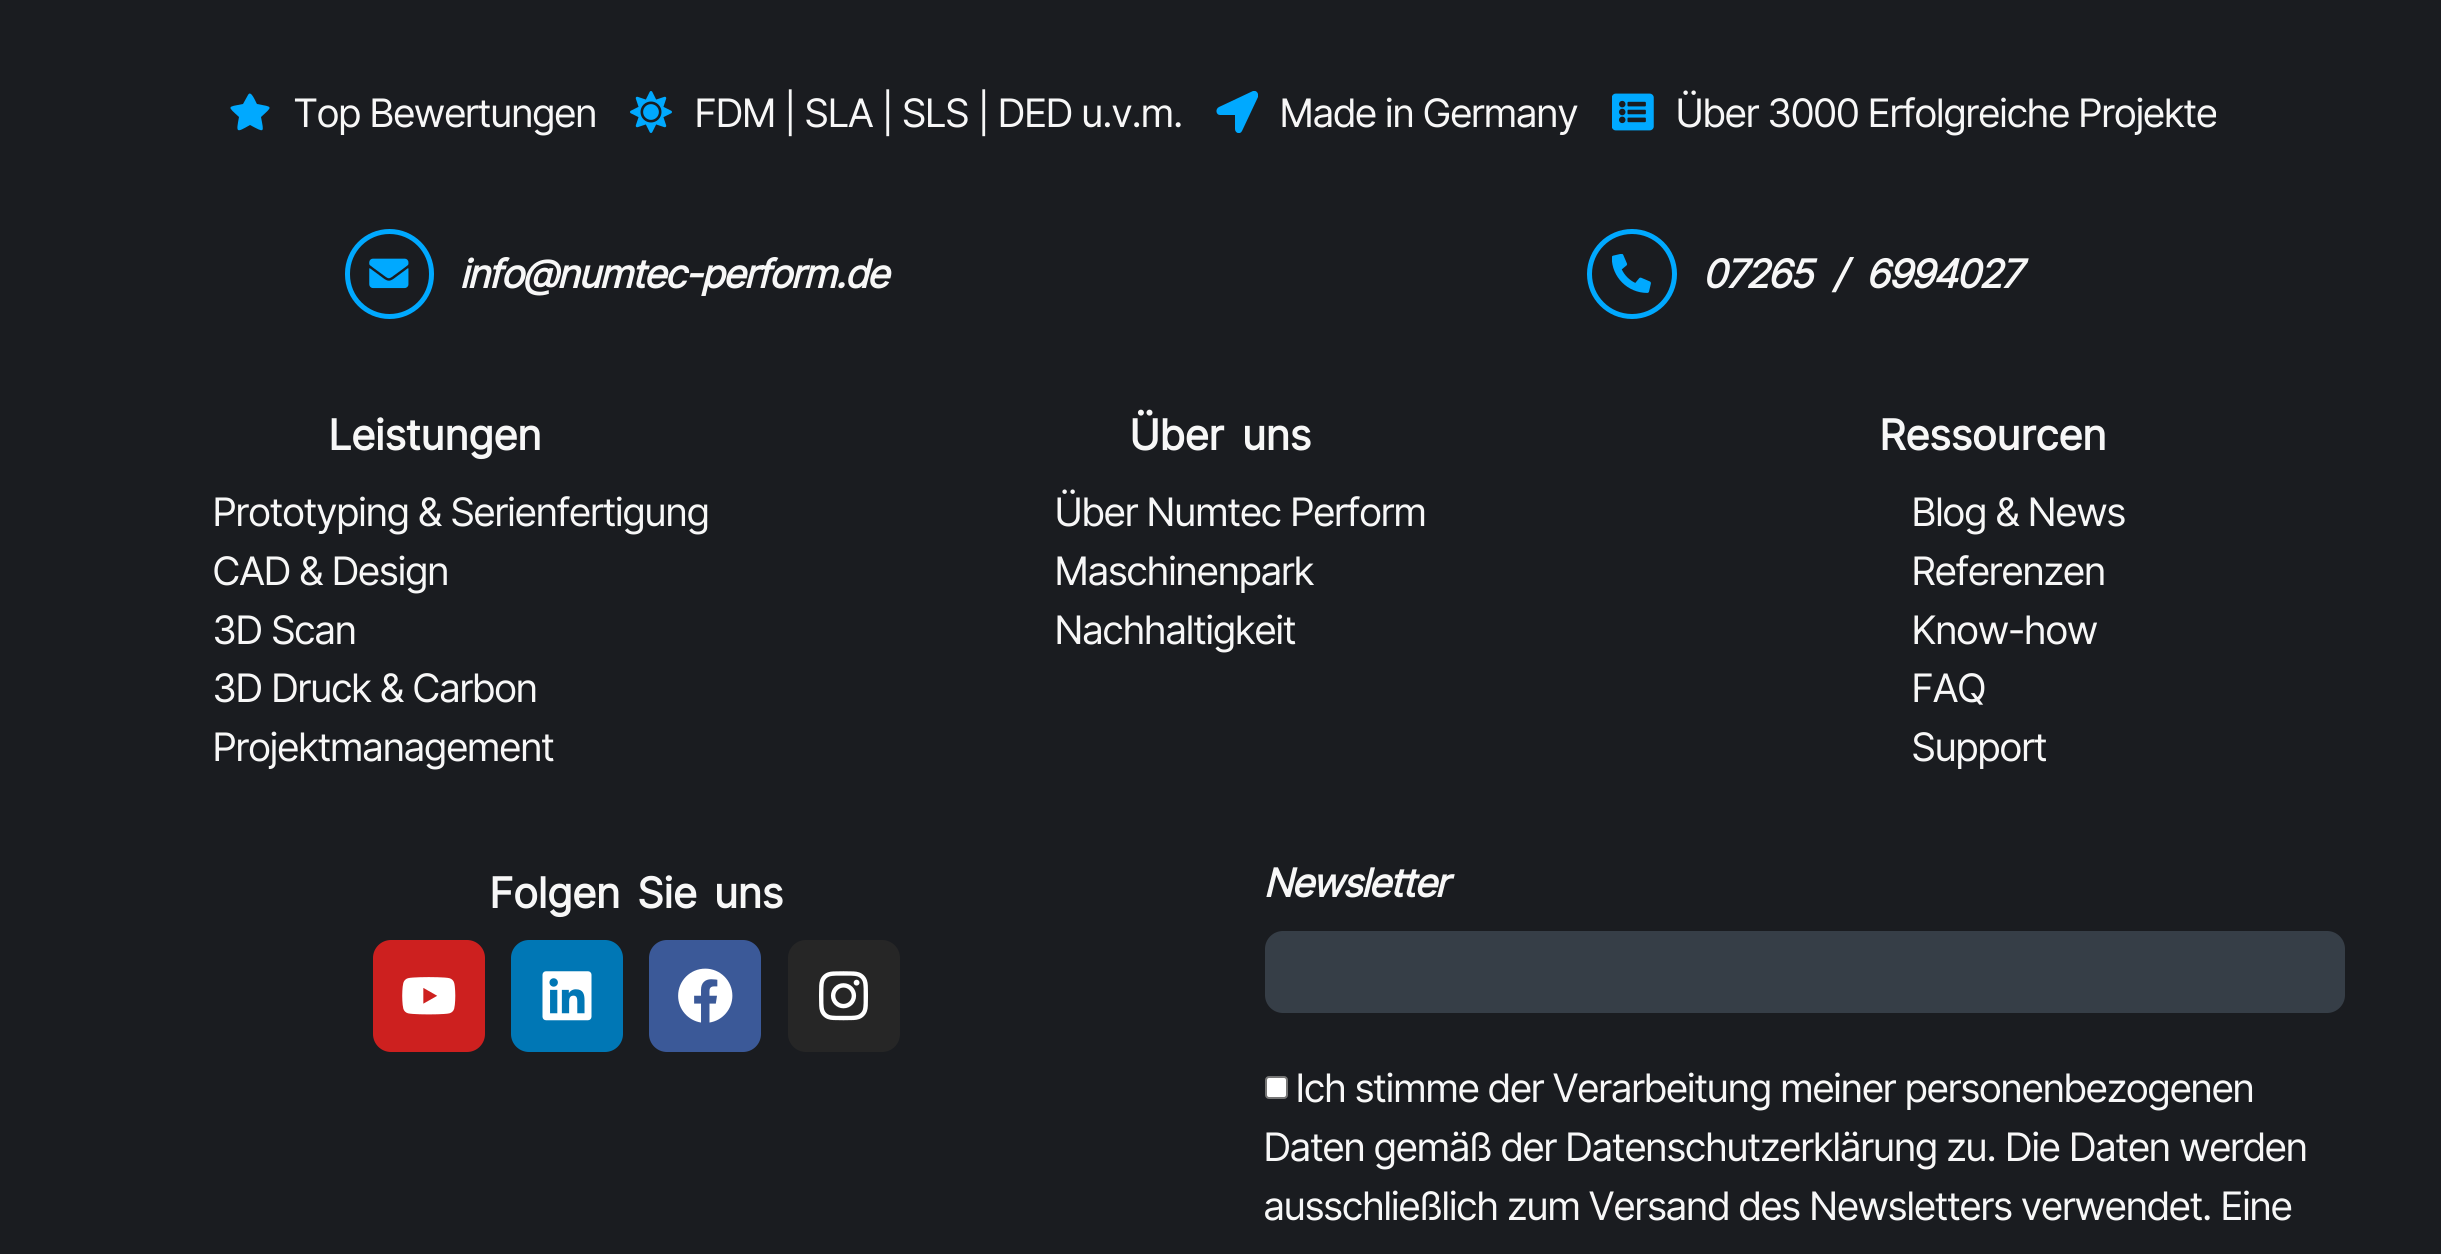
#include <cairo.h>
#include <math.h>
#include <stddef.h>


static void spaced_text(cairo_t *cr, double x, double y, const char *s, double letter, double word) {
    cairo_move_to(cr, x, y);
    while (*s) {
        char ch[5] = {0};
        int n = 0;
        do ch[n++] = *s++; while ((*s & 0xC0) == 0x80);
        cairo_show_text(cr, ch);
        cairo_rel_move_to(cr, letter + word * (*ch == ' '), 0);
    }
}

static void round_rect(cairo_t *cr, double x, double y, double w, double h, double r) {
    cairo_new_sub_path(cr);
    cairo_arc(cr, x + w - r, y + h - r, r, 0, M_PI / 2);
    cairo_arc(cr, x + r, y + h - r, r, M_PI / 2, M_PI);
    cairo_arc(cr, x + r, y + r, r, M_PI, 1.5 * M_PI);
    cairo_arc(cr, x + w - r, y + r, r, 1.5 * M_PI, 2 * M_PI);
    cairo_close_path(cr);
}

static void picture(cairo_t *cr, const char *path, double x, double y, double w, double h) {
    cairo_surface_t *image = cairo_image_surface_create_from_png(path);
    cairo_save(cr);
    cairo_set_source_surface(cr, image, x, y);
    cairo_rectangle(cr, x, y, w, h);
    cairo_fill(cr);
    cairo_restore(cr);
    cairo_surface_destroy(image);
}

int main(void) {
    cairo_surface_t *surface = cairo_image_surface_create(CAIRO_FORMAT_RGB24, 2441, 1254);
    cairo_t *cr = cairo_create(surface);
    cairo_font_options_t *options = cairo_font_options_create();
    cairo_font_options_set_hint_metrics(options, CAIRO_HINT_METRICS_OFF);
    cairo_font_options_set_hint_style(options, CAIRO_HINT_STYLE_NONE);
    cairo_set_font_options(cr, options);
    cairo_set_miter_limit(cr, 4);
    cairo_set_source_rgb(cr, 0.102, 0.11, 0.125);
    cairo_paint(cr);
    cairo_set_source_rgb(cr, 0, 0.663, 1);
    cairo_new_path(cr);
    cairo_move_to(cr, 248, 95);
    cairo_line_to(cr, 243, 104);
    cairo_curve_to(cr, 227, 107, 227, 106, 239, 117);
    cairo_curve_to(cr, 236, 133, 236, 133, 250, 125);
    cairo_curve_to(cr, 265, 133, 264, 133, 261, 117);
    cairo_curve_to(cr, 273, 106, 273, 107, 257, 104);
    cairo_curve_to(cr, 256, 103, 251, 89, 248, 95);
    cairo_close_path(cr);
    cairo_fill(cr);
    cairo_select_font_face(cr, "Inter Tight", CAIRO_FONT_SLANT_NORMAL, CAIRO_FONT_WEIGHT_NORMAL);
    cairo_set_font_size(cr, 39.2);
    cairo_set_source_rgb(cr, 0.965, 0.965, 0.965);
    cairo_move_to(cr, 294, 127);
    cairo_show_text(cr, "Top Bewertungen");
    picture(cr, "img1.png", 630, 91, 42, 42);
    cairo_move_to(cr, 695, 127);
    cairo_show_text(cr, "FDM | SLA | SLS | DED u.v.m.");
    cairo_save(cr);
    cairo_rectangle(cr, 1216, 91, 42, 42);
    cairo_clip(cr);
    cairo_set_source_rgb(cr, 0, 0.663, 1);
    cairo_new_path(cr);
    cairo_move_to(cr, 1253, 91);
    cairo_line_to(cr, 1219, 107);
    cairo_curve_to(cr, 1215, 109, 1216, 115, 1220, 115);
    cairo_line_to(cr, 1235, 115);
    cairo_line_to(cr, 1235, 129);
    cairo_curve_to(cr, 1235, 133, 1240, 135, 1242, 131);
    cairo_line_to(cr, 1258, 97);
    cairo_curve_to(cr, 1259, 93, 1256, 90, 1253, 91);
    cairo_close_path(cr);
    cairo_fill(cr);
    cairo_restore(cr);
    cairo_move_to(cr, 1280, 127);
    cairo_show_text(cr, "Made in Germany");
    picture(cr, "img2.png", 1612, 93, 42, 38);
    cairo_move_to(cr, 1676, 127);
    cairo_show_text(cr, "Über 3000 Erfolgreiche Projekte");
    round_rect(cr, 347.5, 231.5, 84, 85, 42);
    cairo_set_source_rgb(cr, 0, 0.663, 1);
    cairo_set_line_width(cr, 5);
    cairo_stroke(cr);
    picture(cr, "img3.png", 369, 258, 40, 31);
    cairo_select_font_face(cr, "Inter Tight", CAIRO_FONT_SLANT_ITALIC, CAIRO_FONT_WEIGHT_BOLD);
    cairo_set_source_rgb(cr, 0.965, 0.965, 0.965);
    cairo_move_to(cr, 460, 288);
    cairo_show_text(cr, "info@numtec-perform.de");
    cairo_new_path(cr);
    cairo_arc(cr, 1632, 274, 42.5, 0, 2 * M_PI);
    cairo_set_source_rgb(cr, 0, 0.663, 1);
    cairo_stroke(cr);
    picture(cr, "img4.png", 1612, 254, 39, 39);
    cairo_set_source_rgb(cr, 0.965, 0.965, 0.965);
    spaced_text(cr, 1703, 288, "07265 / 6994027", 0, 12);
    cairo_select_font_face(cr, "Inter Tight", CAIRO_FONT_SLANT_NORMAL, CAIRO_FONT_WEIGHT_BOLD);
    cairo_set_font_size(cr, 42);
    spaced_text(cr, 329, 450, "Leistungen", 1.4, 0);
    cairo_select_font_face(cr, "Inter Tight", CAIRO_FONT_SLANT_NORMAL, CAIRO_FONT_WEIGHT_NORMAL);
    cairo_set_font_size(cr, 39.2);
    cairo_move_to(cr, 213, 526);
    cairo_show_text(cr, "Prototyping & Serienfertigung");
    cairo_move_to(cr, 213, 585);
    cairo_show_text(cr, "CAD & Design");
    cairo_move_to(cr, 213, 644);
    cairo_show_text(cr, "3D Scan");
    cairo_move_to(cr, 213, 702);
    cairo_show_text(cr, "3D Druck & Carbon");
    cairo_move_to(cr, 213, 761);
    cairo_show_text(cr, "Projektmanagement");
    cairo_select_font_face(cr, "Inter Tight", CAIRO_FONT_SLANT_NORMAL, CAIRO_FONT_WEIGHT_BOLD);
    cairo_set_font_size(cr, 42);
    spaced_text(cr, 1130, 450, "Über uns", 1.4, 7);
    cairo_select_font_face(cr, "Inter Tight", CAIRO_FONT_SLANT_NORMAL, CAIRO_FONT_WEIGHT_NORMAL);
    cairo_set_font_size(cr, 39.2);
    cairo_move_to(cr, 1055, 526);
    cairo_show_text(cr, "Über Numtec Perform");
    cairo_move_to(cr, 1055, 585);
    cairo_show_text(cr, "Maschinenpark");
    cairo_move_to(cr, 1055, 644);
    cairo_show_text(cr, "Nachhaltigkeit");
    cairo_select_font_face(cr, "Inter Tight", CAIRO_FONT_SLANT_NORMAL, CAIRO_FONT_WEIGHT_BOLD);
    cairo_set_font_size(cr, 42);
    spaced_text(cr, 1880, 450, "Ressourcen", 1.4, 0);
    cairo_select_font_face(cr, "Inter Tight", CAIRO_FONT_SLANT_NORMAL, CAIRO_FONT_WEIGHT_NORMAL);
    cairo_set_font_size(cr, 39.2);
    cairo_move_to(cr, 1912, 526);
    cairo_show_text(cr, "Blog & News");
    cairo_move_to(cr, 1912, 585);
    cairo_show_text(cr, "Referenzen");
    cairo_move_to(cr, 1912, 644);
    cairo_show_text(cr, "Know-how");
    cairo_move_to(cr, 1912, 702);
    cairo_show_text(cr, "FAQ");
    cairo_move_to(cr, 1912, 761);
    cairo_show_text(cr, "Support");
    cairo_select_font_face(cr, "Inter Tight", CAIRO_FONT_SLANT_NORMAL, CAIRO_FONT_WEIGHT_BOLD);
    cairo_set_font_size(cr, 42);
    spaced_text(cr, 490, 908, "Folgen Sie uns", 1.4, 6);
    cairo_set_source_rgb(cr, 0.804, 0.125, 0.122);
    round_rect(cr, 373, 940, 112, 112, 18);
    cairo_fill(cr);
    picture(cr, "img5.png", 402, 977, 54, 38);
    cairo_set_source_rgb(cr, 0, 0.467, 0.71);
    round_rect(cr, 511, 940, 112, 112, 18);
    cairo_fill(cr);
    picture(cr, "img6.png", 542, 971, 50, 50);
    cairo_set_source_rgb(cr, 0.231, 0.349, 0.596);
    round_rect(cr, 649, 940, 112, 112, 18);
    cairo_fill(cr);
    picture(cr, "img7.png", 678, 968, 55, 55);
    cairo_set_source_rgb(cr, 0.149, 0.149, 0.149);
    round_rect(cr, 788, 940, 112, 112, 18);
    cairo_fill(cr);
    picture(cr, "img8.png", 819, 971, 49, 50);
    cairo_select_font_face(cr, "Inter Tight", CAIRO_FONT_SLANT_ITALIC, CAIRO_FONT_WEIGHT_BOLD);
    cairo_set_font_size(cr, 39.2);
    cairo_set_source_rgb(cr, 0.965, 0.965, 0.965);
    cairo_move_to(cr, 1264, 897);
    cairo_show_text(cr, "Newsletter");
    cairo_set_source_rgb(cr, 0.212, 0.243, 0.278);
    round_rect(cr, 1265, 931, 1080, 82, 18);
    cairo_fill(cr);
    cairo_set_source_rgb(cr, 1, 1, 1);
    round_rect(cr, 1266, 1077, 21, 21, 3);
    cairo_fill_preserve(cr);
    cairo_set_source_rgb(cr, 0.463, 0.463, 0.463);
    cairo_set_line_width(cr, 2);
    cairo_stroke(cr);
    cairo_select_font_face(cr, "Inter Tight", CAIRO_FONT_SLANT_NORMAL, CAIRO_FONT_WEIGHT_NORMAL);
    cairo_set_source_rgb(cr, 0.965, 0.965, 0.965);
    cairo_move_to(cr, 1296, 1102);
    cairo_show_text(cr, "Ich stimme der Verarbeitung meiner personenbezogenen");
    cairo_move_to(cr, 1264, 1161);
    cairo_show_text(cr, "Daten gemäß der Datenschutzerklärung zu. Die Daten werden");
    cairo_move_to(cr, 1264, 1220);
    cairo_show_text(cr, "ausschließlich zum Versand des Newsletters verwendet. Eine");
    cairo_surface_write_to_png(surface, "page.png");
    cairo_font_options_destroy(options);
    cairo_destroy(cr);
    cairo_surface_destroy(surface);
    return 0;
}
